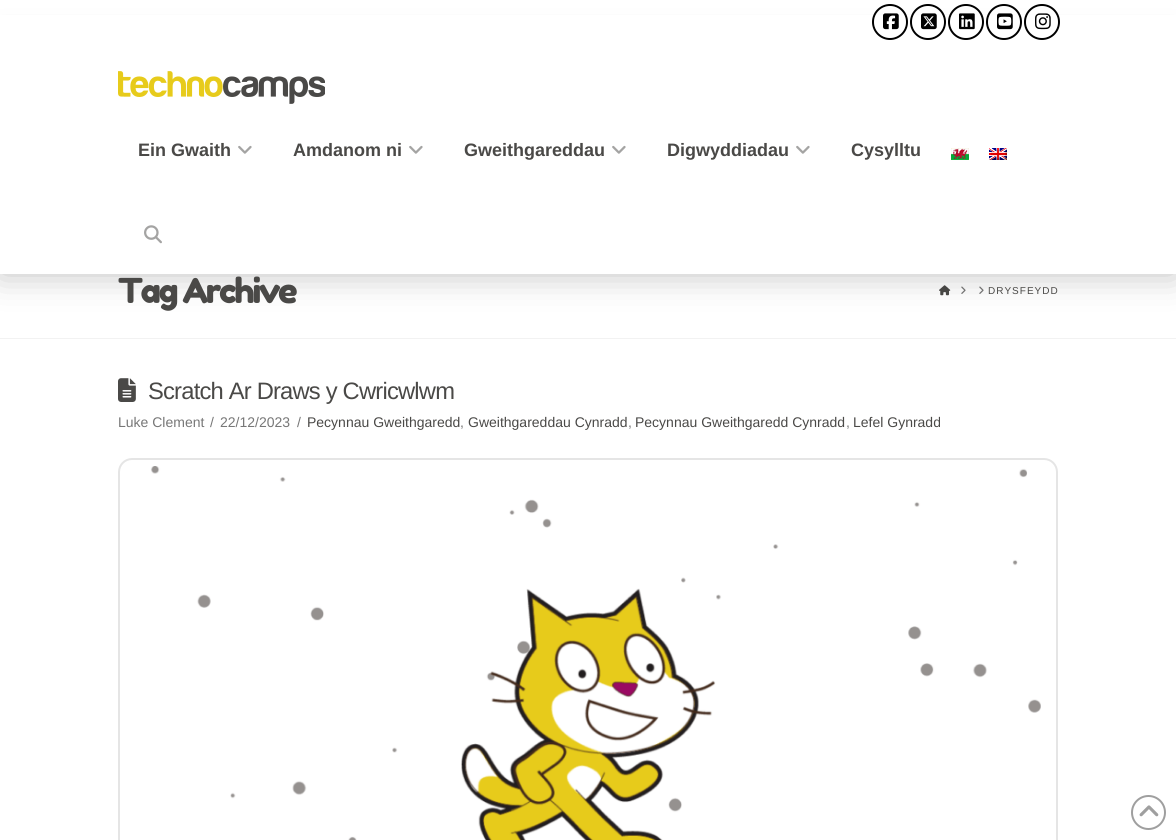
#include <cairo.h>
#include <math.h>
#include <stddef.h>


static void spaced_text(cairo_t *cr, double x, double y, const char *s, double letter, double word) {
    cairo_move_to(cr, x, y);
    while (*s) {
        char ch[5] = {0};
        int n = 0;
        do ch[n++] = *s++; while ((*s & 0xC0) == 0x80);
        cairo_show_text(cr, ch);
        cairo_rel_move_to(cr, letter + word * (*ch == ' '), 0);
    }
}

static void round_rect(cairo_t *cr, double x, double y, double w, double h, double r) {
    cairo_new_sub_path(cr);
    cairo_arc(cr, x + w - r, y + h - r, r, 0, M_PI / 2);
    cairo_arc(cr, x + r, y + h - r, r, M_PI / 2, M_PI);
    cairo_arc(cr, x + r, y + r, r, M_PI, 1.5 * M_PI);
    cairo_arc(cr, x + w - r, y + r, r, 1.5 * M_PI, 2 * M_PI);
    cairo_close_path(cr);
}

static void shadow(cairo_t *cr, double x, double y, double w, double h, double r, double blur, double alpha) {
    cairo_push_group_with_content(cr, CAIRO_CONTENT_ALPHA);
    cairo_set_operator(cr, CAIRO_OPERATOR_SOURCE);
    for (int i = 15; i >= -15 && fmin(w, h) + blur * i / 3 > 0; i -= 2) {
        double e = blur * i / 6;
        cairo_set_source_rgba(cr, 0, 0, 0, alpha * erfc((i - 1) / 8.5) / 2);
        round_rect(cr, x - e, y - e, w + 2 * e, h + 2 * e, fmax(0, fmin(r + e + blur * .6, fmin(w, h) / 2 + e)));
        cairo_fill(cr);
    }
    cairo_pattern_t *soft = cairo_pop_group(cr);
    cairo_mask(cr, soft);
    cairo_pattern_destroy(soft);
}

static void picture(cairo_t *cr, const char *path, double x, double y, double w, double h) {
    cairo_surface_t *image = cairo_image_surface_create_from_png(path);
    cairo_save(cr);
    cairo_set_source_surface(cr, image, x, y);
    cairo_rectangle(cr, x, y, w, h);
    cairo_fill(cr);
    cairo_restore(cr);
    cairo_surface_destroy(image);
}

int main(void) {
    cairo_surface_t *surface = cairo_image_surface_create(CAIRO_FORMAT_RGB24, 1176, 840);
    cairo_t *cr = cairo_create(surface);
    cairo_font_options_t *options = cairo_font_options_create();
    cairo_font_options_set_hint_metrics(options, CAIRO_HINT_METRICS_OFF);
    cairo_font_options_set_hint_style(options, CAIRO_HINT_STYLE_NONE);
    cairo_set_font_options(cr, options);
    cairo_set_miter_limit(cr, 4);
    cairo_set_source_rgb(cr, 1, 1, 1);
    cairo_paint(cr);
    picture(cr, "img11.png", 939, 285, 12, 11);
    picture(cr, "img12.png", 961, 286, 5, 8);
    picture(cr, "img12.png", 979, 286, 5, 8);
    cairo_set_source_rgb(cr, 0, 0, 0);
    shadow(cr, 0, 46, 1176, 228, 0, 17.5, 0.25);
    cairo_set_source_rgb(cr, 1, 1, 1);
    cairo_rectangle(cr, 0, 15, 1176, 259);
    cairo_fill(cr);
    cairo_arc(cr, 890, 22, 17, 0, 2 * M_PI);
    cairo_set_source_rgb(cr, 0, 0, 0);
    cairo_stroke(cr);
    cairo_set_source_rgba(cr, 1, 1, 1, 0.2);
    cairo_arc(cr, 890, 22, 16, 0, 2 * M_PI);
    cairo_fill(cr);
    picture(cr, "img1.png", 883, 13, 16, 17);
    cairo_arc(cr, 928, 22, 17, 0, 2 * M_PI);
    cairo_set_source_rgb(cr, 0, 0, 0);
    cairo_stroke(cr);
    cairo_set_source_rgba(cr, 1, 1, 1, 0.2);
    cairo_arc(cr, 928, 22, 16, 0, 2 * M_PI);
    cairo_fill(cr);
    picture(cr, "img2.png", 921, 13, 16, 17);
    cairo_arc(cr, 966, 22, 17, 0, 2 * M_PI);
    cairo_set_source_rgb(cr, 0, 0, 0);
    cairo_stroke(cr);
    cairo_set_source_rgba(cr, 1, 1, 1, 0.2);
    cairo_arc(cr, 966, 22, 16, 0, 2 * M_PI);
    cairo_fill(cr);
    picture(cr, "img3.png", 959, 13, 16, 17);
    cairo_arc(cr, 1004, 22, 17, 0, 2 * M_PI);
    cairo_set_source_rgb(cr, 0, 0, 0);
    cairo_stroke(cr);
    cairo_set_source_rgba(cr, 1, 1, 1, 0.2);
    cairo_arc(cr, 1004, 22, 16, 0, 2 * M_PI);
    cairo_fill(cr);
    picture(cr, "img4.png", 997, 13, 16, 17);
    cairo_arc(cr, 1042, 22, 17, 0, 2 * M_PI);
    cairo_set_source_rgb(cr, 0, 0, 0);
    cairo_stroke(cr);
    cairo_set_source_rgba(cr, 1, 1, 1, 0.2);
    cairo_arc(cr, 1042, 22, 16, 0, 2 * M_PI);
    cairo_fill(cr);
    picture(cr, "img5.png", 1035, 13, 16, 17);
    picture(cr, "img6.png", 118, 71, 207, 33);
    cairo_select_font_face(cr, "Liberation Sans", CAIRO_FONT_SLANT_NORMAL, CAIRO_FONT_WEIGHT_BOLD);
    cairo_set_font_size(cr, 18);
    cairo_set_source_rgb(cr, 0.29, 0.286, 0.278);
    cairo_move_to(cr, 138, 156);
    cairo_show_text(cr, "Ein Gwaith");
    picture(cr, "img7.png", 238, 145, 14, 9);
    cairo_move_to(cr, 293, 156);
    cairo_show_text(cr, "Amdanom ni");
    picture(cr, "img7.png", 409, 145, 14, 9);
    cairo_move_to(cr, 464, 156);
    cairo_show_text(cr, "Gweithgareddau");
    picture(cr, "img7.png", 612, 145, 14, 9);
    cairo_move_to(cr, 667, 156);
    cairo_show_text(cr, "Digwyddiadau");
    picture(cr, "img7.png", 796, 145, 14, 9);
    cairo_move_to(cr, 851, 156);
    cairo_show_text(cr, "Cysylltu");
    picture(cr, "img8.png", 951, 148, 18, 12);
    picture(cr, "img9.png", 989, 148, 18, 12);
    picture(cr, "img10.png", 144, 225, 18, 19);
    cairo_set_source_rgb(cr, 0.949, 0.949, 0.949);
    cairo_rectangle(cr, 0, 338, 1176, 1);
    cairo_fill(cr);
    cairo_select_font_face(cr, "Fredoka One", CAIRO_FONT_SLANT_NORMAL, CAIRO_FONT_WEIGHT_NORMAL);
    cairo_set_font_size(cr, 34.25);
    cairo_set_source_rgb(cr, 0.29, 0.286, 0.278);
    spaced_text(cr, 118, 303, "Tag Archive", -2.5, 0);
    cairo_select_font_face(cr, "Liberation Sans", CAIRO_FONT_SLANT_NORMAL, CAIRO_FONT_WEIGHT_NORMAL);
    cairo_set_font_size(cr, 10);
    spaced_text(cr, 988, 294, "DRYSFEYDD", 1, 0);
    picture(cr, "img13.png", 118, 378, 18, 24);
    cairo_set_font_size(cr, 23.75);
    spaced_text(cr, 148, 399, "Scratch Ar Draws y Cwricwlwm", -0.8, 0);
    cairo_set_font_size(cr, 14);
    cairo_set_source_rgb(cr, 0.467, 0.467, 0.467);
    cairo_move_to(cr, 118, 427);
    cairo_show_text(cr, "Luke Clement");
    cairo_move_to(cr, 210, 427);
    cairo_show_text(cr, "/");
    cairo_move_to(cr, 220, 427);
    cairo_show_text(cr, "22/12/2023");
    cairo_move_to(cr, 297, 427);
    cairo_show_text(cr, "/");
    cairo_set_source_rgb(cr, 0.29, 0.286, 0.278);
    cairo_move_to(cr, 307, 427);
    cairo_show_text(cr, "Pecynnau Gweithgaredd");
    cairo_set_source_rgb(cr, 0.467, 0.467, 0.467);
    cairo_move_to(cr, 460, 427);
    cairo_show_text(cr, ",");
    cairo_set_source_rgb(cr, 0.29, 0.286, 0.278);
    cairo_move_to(cr, 468, 427);
    cairo_show_text(cr, "Gweithgareddau Cynradd");
    cairo_set_source_rgb(cr, 0.467, 0.467, 0.467);
    cairo_move_to(cr, 628, 427);
    cairo_show_text(cr, ",");
    cairo_set_source_rgb(cr, 0.29, 0.286, 0.278);
    cairo_move_to(cr, 635, 427);
    cairo_show_text(cr, "Pecynnau Gweithgaredd Cynradd");
    cairo_set_source_rgb(cr, 0.467, 0.467, 0.467);
    cairo_move_to(cr, 846, 427);
    cairo_show_text(cr, ",");
    cairo_set_source_rgb(cr, 0.29, 0.286, 0.278);
    cairo_move_to(cr, 853, 427);
    cairo_show_text(cr, "Lefel Gynradd");
    round_rect(cr, 119, 459, 938, 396, 13);
    cairo_set_source_rgb(cr, 0.898, 0.898, 0.898);
    cairo_stroke(cr);
    picture(cr, "img14.png", 126, 466, 924, 374);
    cairo_arc(cr, 1148.5, 812.5, 16.5, 0, 2 * M_PI);
    cairo_set_source_rgb(cr, 0.624, 0.624, 0.624);
    cairo_stroke(cr);
    picture(cr, "img15.png", 1139, 805, 20, 12);
    cairo_surface_write_to_png(surface, "page.png");
    cairo_font_options_destroy(options);
    cairo_destroy(cr);
    cairo_surface_destroy(surface);
    return 0;
}
